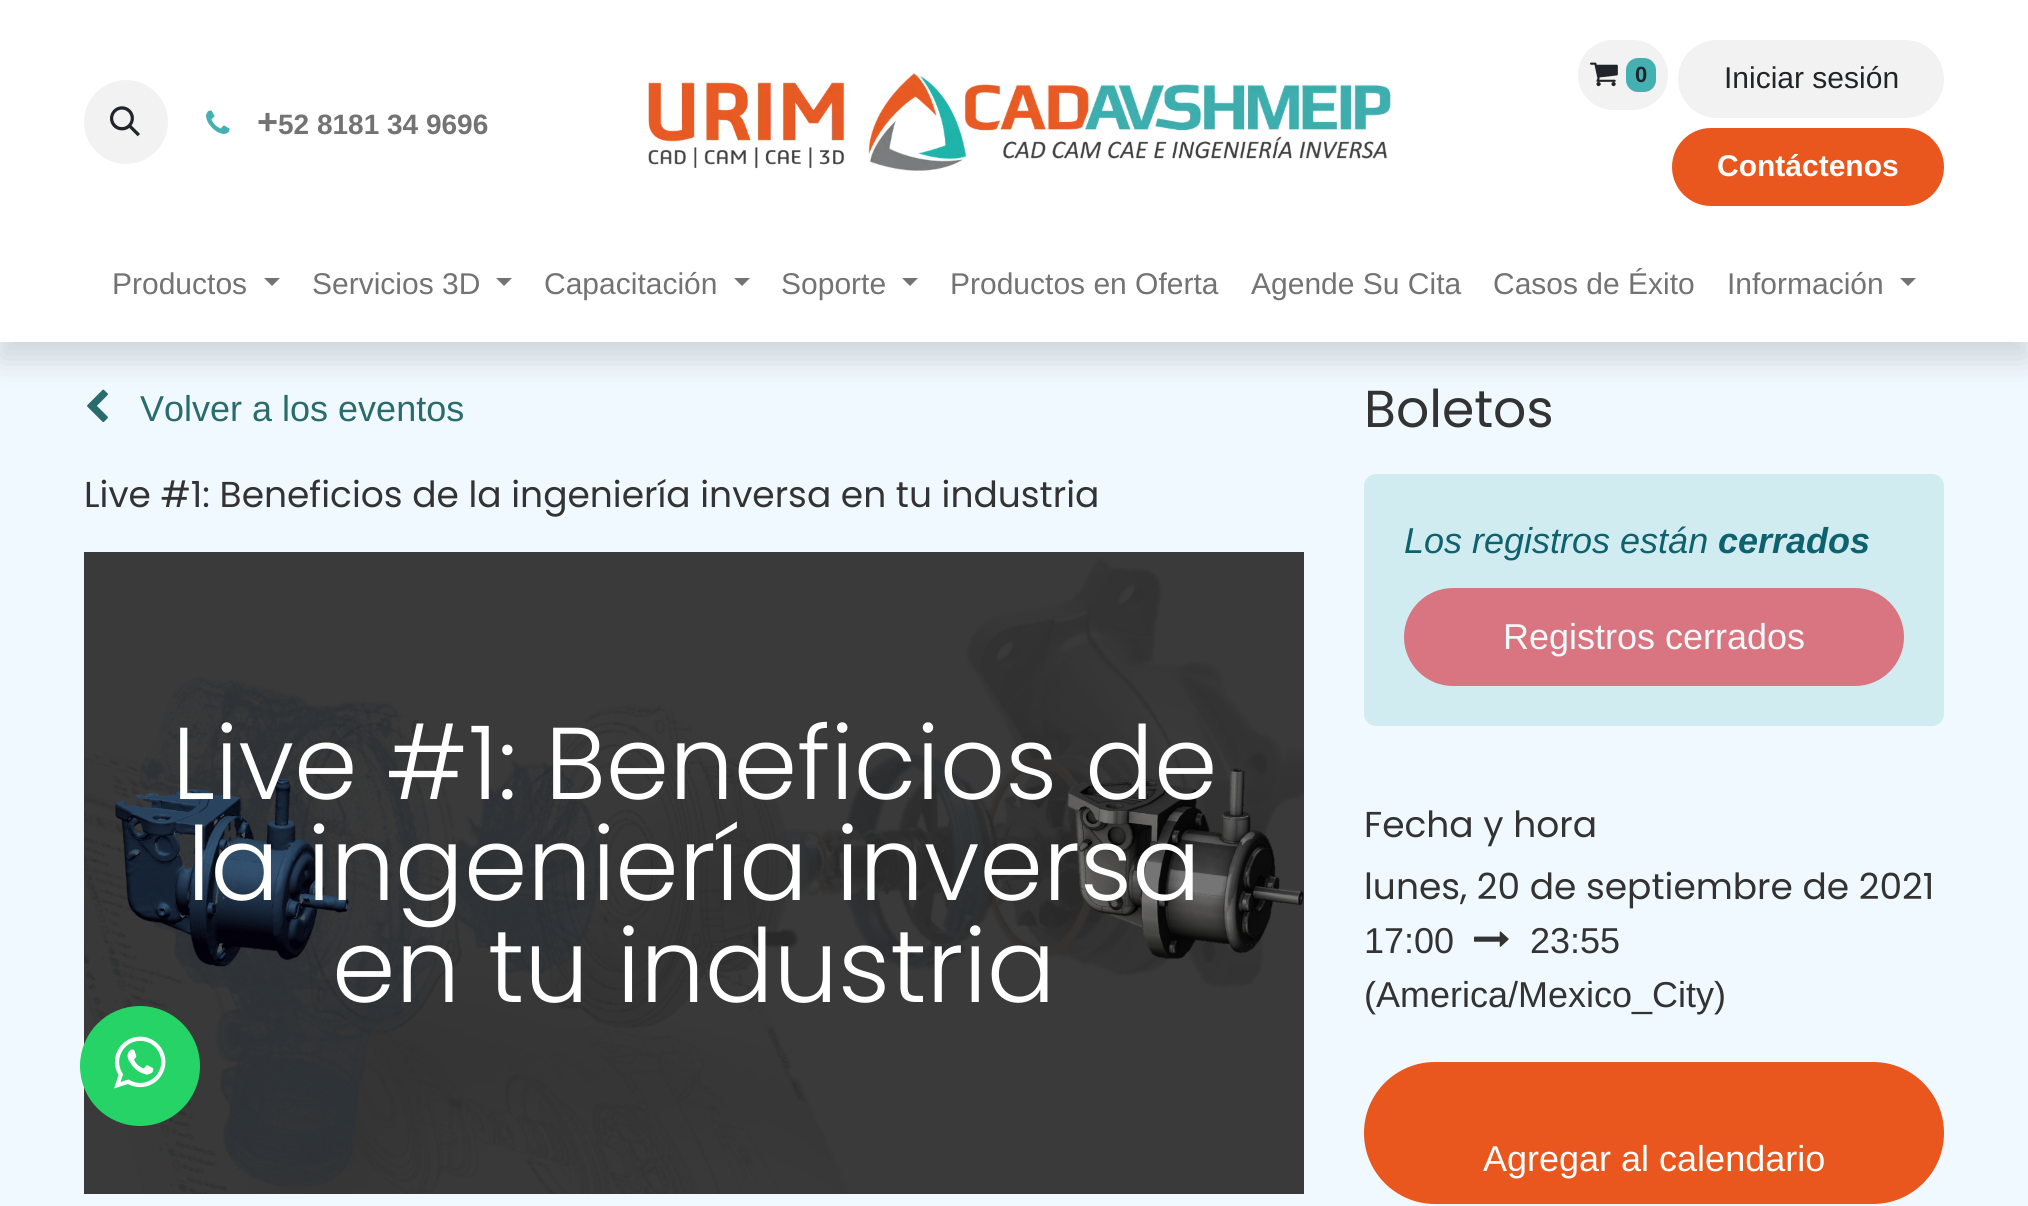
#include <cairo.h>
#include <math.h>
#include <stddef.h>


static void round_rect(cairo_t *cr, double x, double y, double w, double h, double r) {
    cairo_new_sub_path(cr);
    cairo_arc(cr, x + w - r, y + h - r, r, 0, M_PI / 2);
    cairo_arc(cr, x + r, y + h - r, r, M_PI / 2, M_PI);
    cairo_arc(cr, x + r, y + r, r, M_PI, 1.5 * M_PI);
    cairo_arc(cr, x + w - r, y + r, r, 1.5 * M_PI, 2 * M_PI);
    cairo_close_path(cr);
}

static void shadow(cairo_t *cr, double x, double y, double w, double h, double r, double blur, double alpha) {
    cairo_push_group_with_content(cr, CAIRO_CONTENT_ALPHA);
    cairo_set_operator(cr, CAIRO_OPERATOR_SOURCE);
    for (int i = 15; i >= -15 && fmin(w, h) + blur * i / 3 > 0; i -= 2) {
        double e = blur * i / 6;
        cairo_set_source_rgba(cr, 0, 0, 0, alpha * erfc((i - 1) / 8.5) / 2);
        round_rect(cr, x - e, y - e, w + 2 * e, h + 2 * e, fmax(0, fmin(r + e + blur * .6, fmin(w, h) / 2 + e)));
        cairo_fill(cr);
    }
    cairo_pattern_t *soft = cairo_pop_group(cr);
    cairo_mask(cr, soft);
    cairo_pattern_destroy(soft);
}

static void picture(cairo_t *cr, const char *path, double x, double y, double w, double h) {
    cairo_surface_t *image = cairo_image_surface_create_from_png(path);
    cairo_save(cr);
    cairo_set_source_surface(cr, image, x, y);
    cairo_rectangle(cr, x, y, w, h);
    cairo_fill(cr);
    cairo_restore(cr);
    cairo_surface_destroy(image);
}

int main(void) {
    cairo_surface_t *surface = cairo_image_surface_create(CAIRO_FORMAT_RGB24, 2028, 1206);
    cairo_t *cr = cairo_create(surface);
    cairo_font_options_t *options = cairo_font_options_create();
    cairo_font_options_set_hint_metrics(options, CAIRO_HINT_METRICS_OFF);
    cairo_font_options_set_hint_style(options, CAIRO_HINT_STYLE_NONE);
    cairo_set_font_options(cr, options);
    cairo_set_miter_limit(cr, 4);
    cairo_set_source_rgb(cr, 0.941, 0.973, 1);
    cairo_paint(cr);
    picture(cr, "img5.png", 87, 389, 21, 33);
    cairo_set_source_rgb(cr, 0, 0, 0);
    shadow(cr, 0, 16, 2028, 342, 0, 16, 0.15);
    cairo_set_source_rgb(cr, 1, 1, 1);
    cairo_rectangle(cr, 0, 0, 2028, 342);
    cairo_fill(cr);
    cairo_set_source_rgb(cr, 0.949, 0.949, 0.949);
    cairo_arc(cr, 126, 122, 42, 0, 2 * M_PI);
    cairo_fill(cr);
    picture(cr, "img1.png", 110, 106, 30, 31);
    picture(cr, "img2.png", 206, 110, 24, 24);
    cairo_select_font_face(cr, "Liberation Sans", CAIRO_FONT_SLANT_NORMAL, CAIRO_FONT_WEIGHT_BOLD);
    cairo_set_font_size(cr, 36);
    cairo_set_source_rgb(cr, 0.451, 0.451, 0.451);
    cairo_move_to(cr, 257, 134);
    cairo_show_text(cr, "+");
    cairo_set_font_size(cr, 28);
    cairo_move_to(cr, 278, 134);
    cairo_show_text(cr, "52 8181 34 9696");
    picture(cr, "img3.png", 648, 73, 743, 98);
    cairo_set_source_rgb(cr, 0.949, 0.949, 0.949);
    round_rect(cr, 1578, 40, 90, 70, 35);
    cairo_fill(cr);
    picture(cr, "img4.png", 1590, 62, 28, 25);
    cairo_set_source_rgb(cr, 0.271, 0.69, 0.698);
    round_rect(cr, 1626, 58, 30, 34, 12);
    cairo_fill(cr);
    cairo_set_font_size(cr, 22);
    cairo_set_source_rgb(cr, 0.129, 0.145, 0.161);
    cairo_move_to(cr, 1635, 82);
    cairo_show_text(cr, "0");
    cairo_set_source_rgb(cr, 0.949, 0.949, 0.949);
    round_rect(cr, 1678, 40, 266, 78, 39);
    cairo_fill(cr);
    cairo_select_font_face(cr, "Liberation Sans", CAIRO_FONT_SLANT_NORMAL, CAIRO_FONT_WEIGHT_NORMAL);
    cairo_set_font_size(cr, 30);
    cairo_set_source_rgb(cr, 0.129, 0.145, 0.161);
    cairo_move_to(cr, 1724, 88);
    cairo_show_text(cr, "Iniciar sesión");
    cairo_set_source_rgb(cr, 0.914, 0.337, 0.118);
    round_rect(cr, 1673, 129, 270, 76, 38);
    cairo_fill_preserve(cr);
    cairo_stroke(cr);
    cairo_select_font_face(cr, "Liberation Sans", CAIRO_FONT_SLANT_NORMAL, CAIRO_FONT_WEIGHT_BOLD);
    cairo_set_source_rgb(cr, 1, 1, 1);
    cairo_move_to(cr, 1717, 176);
    cairo_show_text(cr, "Contáctenos");
    cairo_select_font_face(cr, "Liberation Sans", CAIRO_FONT_SLANT_NORMAL, CAIRO_FONT_WEIGHT_NORMAL);
    cairo_set_source_rgb(cr, 0.451, 0.451, 0.451);
    cairo_move_to(cr, 112, 294);
    cairo_show_text(cr, "Productos");
    cairo_new_path(cr);
    cairo_move_to(cr, 264, 278);
    cairo_line_to(cr, 280, 278);
    cairo_line_to(cr, 272, 286);
    cairo_close_path(cr);
    cairo_fill(cr);
    cairo_move_to(cr, 312, 294);
    cairo_show_text(cr, "Servicios 3D");
    cairo_new_path(cr);
    cairo_move_to(cr, 496, 278);
    cairo_line_to(cr, 512, 278);
    cairo_line_to(cr, 504, 286);
    cairo_close_path(cr);
    cairo_fill(cr);
    cairo_move_to(cr, 544, 294);
    cairo_show_text(cr, "Capacitación");
    cairo_new_path(cr);
    cairo_move_to(cr, 734, 278);
    cairo_line_to(cr, 750, 278);
    cairo_line_to(cr, 742, 286);
    cairo_close_path(cr);
    cairo_fill(cr);
    cairo_move_to(cr, 781, 294);
    cairo_show_text(cr, "Soporte");
    cairo_new_path(cr);
    cairo_move_to(cr, 902, 278);
    cairo_line_to(cr, 918, 278);
    cairo_line_to(cr, 910, 286);
    cairo_close_path(cr);
    cairo_fill(cr);
    cairo_move_to(cr, 950, 294);
    cairo_show_text(cr, "Productos en Oferta");
    cairo_move_to(cr, 1251, 294);
    cairo_show_text(cr, "Agende Su Cita");
    cairo_move_to(cr, 1493, 294);
    cairo_show_text(cr, "Casos de Éxito");
    cairo_move_to(cr, 1727, 294);
    cairo_show_text(cr, "Información");
    cairo_new_path(cr);
    cairo_move_to(cr, 1900, 278);
    cairo_line_to(cr, 1916, 278);
    cairo_line_to(cr, 1908, 286);
    cairo_close_path(cr);
    cairo_fill(cr);
    cairo_set_font_size(cr, 36);
    cairo_set_source_rgb(cr, 0.165, 0.42, 0.424);
    cairo_move_to(cr, 140, 421);
    cairo_show_text(cr, "Volver a los eventos");
    cairo_select_font_face(cr, "Poppins", CAIRO_FONT_SLANT_NORMAL, CAIRO_FONT_WEIGHT_NORMAL);
    cairo_set_source_rgb(cr, 0.2, 0.2, 0.2);
    cairo_move_to(cr, 84, 507);
    cairo_show_text(cr, "Live #1: Beneficios de la ingeniería inversa en tu industria");
    picture(cr, "img6.png", 84, 552, 1220, 642);
    cairo_select_font_face(cr, "Poppins Light", CAIRO_FONT_SLANT_NORMAL, CAIRO_FONT_WEIGHT_NORMAL);
    cairo_set_font_size(cr, 102);
    cairo_set_source_rgb(cr, 1, 1, 1);
    cairo_move_to(cr, 172, 799);
    cairo_show_text(cr, "Live #1: Beneficios de");
    cairo_move_to(cr, 187, 900);
    cairo_show_text(cr, "la ingeniería inversa");
    cairo_move_to(cr, 332, 1002);
    cairo_show_text(cr, "en tu industria");
    cairo_select_font_face(cr, "Poppins", CAIRO_FONT_SLANT_NORMAL, CAIRO_FONT_WEIGHT_NORMAL);
    cairo_set_font_size(cr, 52);
    cairo_set_source_rgb(cr, 0.2, 0.2, 0.2);
    cairo_move_to(cr, 1364, 427);
    cairo_show_text(cr, "Boletos");
    cairo_set_source_rgb(cr, 0.82, 0.925, 0.945);
    round_rect(cr, 1364, 474, 580, 252, 12);
    cairo_fill(cr);
    cairo_select_font_face(cr, "Liberation Sans", CAIRO_FONT_SLANT_ITALIC, CAIRO_FONT_WEIGHT_NORMAL);
    cairo_set_font_size(cr, 36);
    cairo_set_source_rgb(cr, 0.055, 0.38, 0.431);
    cairo_move_to(cr, 1404, 553);
    cairo_show_text(cr, "Los registros están");
    cairo_select_font_face(cr, "Liberation Sans", CAIRO_FONT_SLANT_ITALIC, CAIRO_FONT_WEIGHT_BOLD);
    cairo_move_to(cr, 1718, 553);
    cairo_show_text(cr, "cerrados");
    cairo_set_source_rgb(cr, 0.847, 0.459, 0.506);
    round_rect(cr, 1405, 589, 498, 96, 48);
    cairo_fill_preserve(cr);
    cairo_stroke(cr);
    cairo_select_font_face(cr, "Liberation Sans", CAIRO_FONT_SLANT_NORMAL, CAIRO_FONT_WEIGHT_NORMAL);
    cairo_set_source_rgb(cr, 0.937, 0.973, 0.98);
    cairo_move_to(cr, 1503, 649);
    cairo_show_text(cr, "Registros cerrados");
    cairo_select_font_face(cr, "Poppins", CAIRO_FONT_SLANT_NORMAL, CAIRO_FONT_WEIGHT_NORMAL);
    cairo_set_source_rgb(cr, 0.2, 0.2, 0.2);
    cairo_move_to(cr, 1364, 837);
    cairo_show_text(cr, "Fecha y hora");
    cairo_move_to(cr, 1364, 899);
    cairo_show_text(cr, "lunes, 20 de septiembre de 2021");
    cairo_select_font_face(cr, "Liberation Sans", CAIRO_FONT_SLANT_NORMAL, CAIRO_FONT_WEIGHT_NORMAL);
    cairo_move_to(cr, 1364, 953);
    cairo_show_text(cr, "17:00");
    picture(cr, "img7.png", 1474, 931, 35, 16);
    cairo_move_to(cr, 1530, 953);
    cairo_show_text(cr, "23:55");
    cairo_move_to(cr, 1364, 1007);
    cairo_show_text(cr, "(America/Mexico_City)");
    cairo_set_source_rgb(cr, 0.914, 0.337, 0.118);
    round_rect(cr, 1365, 1063, 578, 140, 70);
    cairo_fill_preserve(cr);
    cairo_stroke(cr);
    cairo_set_source_rgb(cr, 1, 1, 1);
    cairo_move_to(cr, 1483, 1171);
    cairo_show_text(cr, "Agregar al calendario");
    cairo_set_source_rgb(cr, 0.145, 0.827, 0.4);
    cairo_new_path(cr);
    cairo_arc(cr, 140, 1066, 60, 0, 2 * M_PI);
    cairo_fill(cr);
    picture(cr, "img8.png", 114, 1036, 52, 53);
    cairo_surface_write_to_png(surface, "page.png");
    cairo_font_options_destroy(options);
    cairo_destroy(cr);
    cairo_surface_destroy(surface);
    return 0;
}
